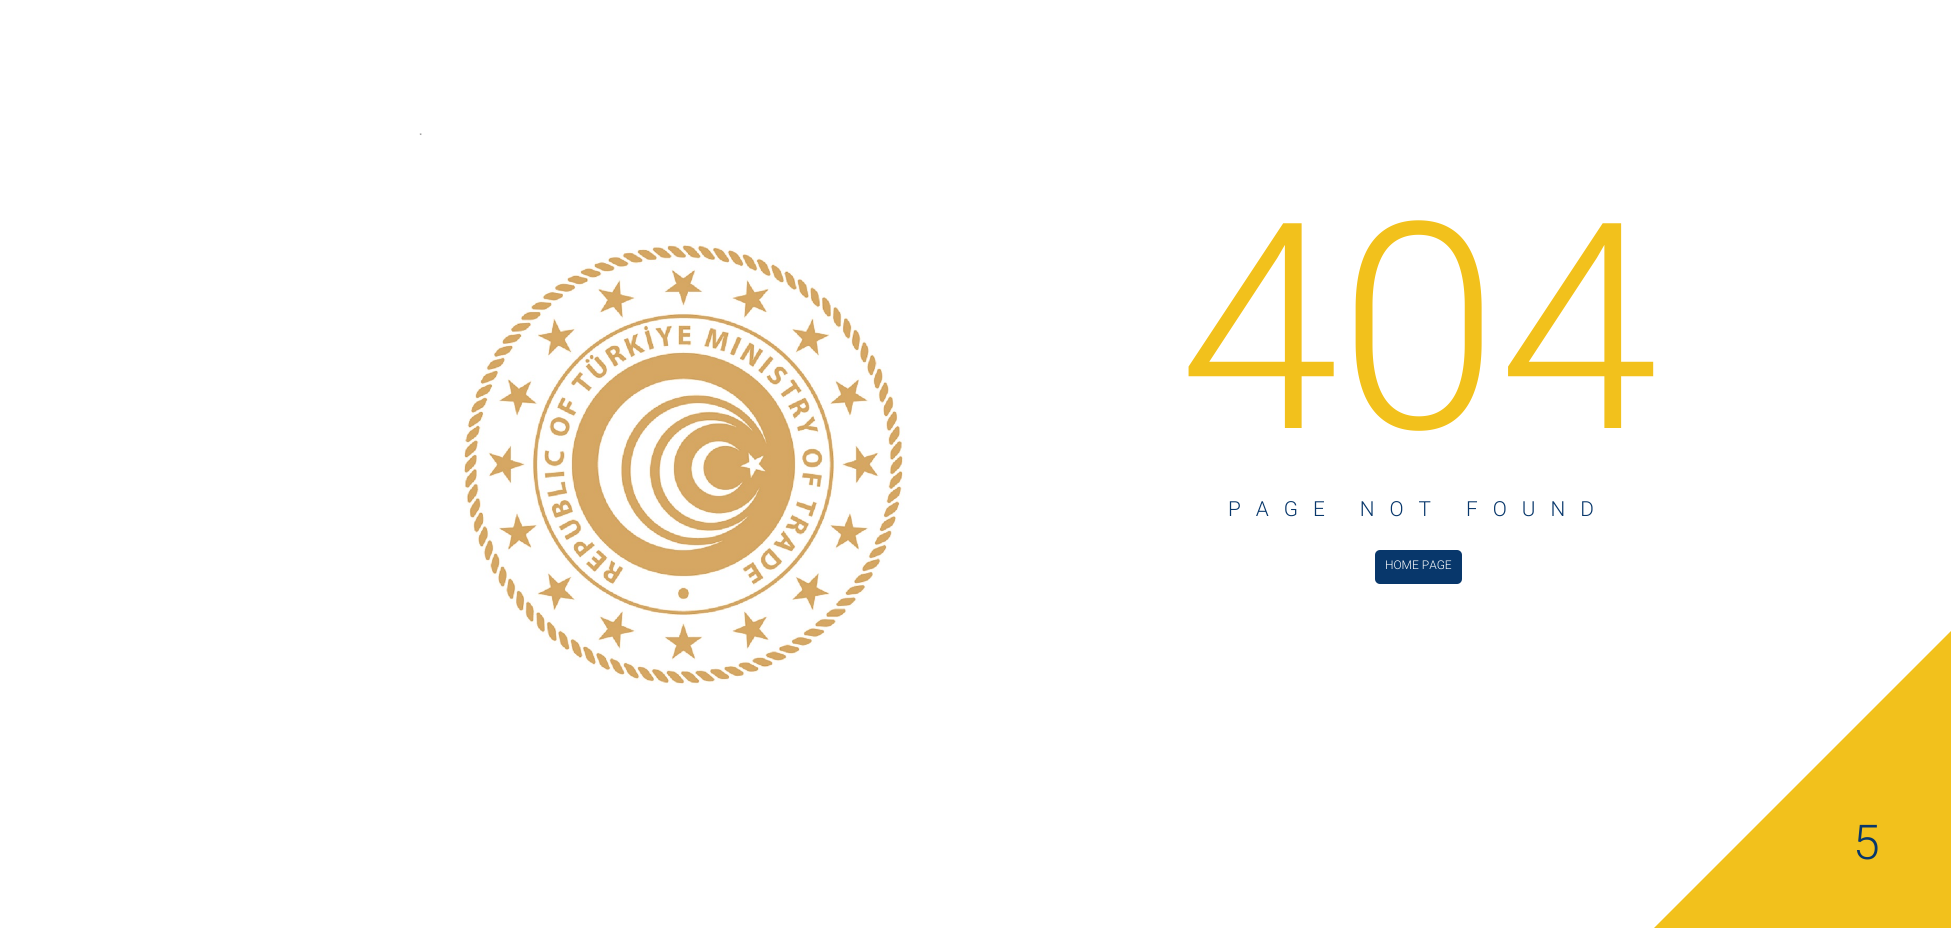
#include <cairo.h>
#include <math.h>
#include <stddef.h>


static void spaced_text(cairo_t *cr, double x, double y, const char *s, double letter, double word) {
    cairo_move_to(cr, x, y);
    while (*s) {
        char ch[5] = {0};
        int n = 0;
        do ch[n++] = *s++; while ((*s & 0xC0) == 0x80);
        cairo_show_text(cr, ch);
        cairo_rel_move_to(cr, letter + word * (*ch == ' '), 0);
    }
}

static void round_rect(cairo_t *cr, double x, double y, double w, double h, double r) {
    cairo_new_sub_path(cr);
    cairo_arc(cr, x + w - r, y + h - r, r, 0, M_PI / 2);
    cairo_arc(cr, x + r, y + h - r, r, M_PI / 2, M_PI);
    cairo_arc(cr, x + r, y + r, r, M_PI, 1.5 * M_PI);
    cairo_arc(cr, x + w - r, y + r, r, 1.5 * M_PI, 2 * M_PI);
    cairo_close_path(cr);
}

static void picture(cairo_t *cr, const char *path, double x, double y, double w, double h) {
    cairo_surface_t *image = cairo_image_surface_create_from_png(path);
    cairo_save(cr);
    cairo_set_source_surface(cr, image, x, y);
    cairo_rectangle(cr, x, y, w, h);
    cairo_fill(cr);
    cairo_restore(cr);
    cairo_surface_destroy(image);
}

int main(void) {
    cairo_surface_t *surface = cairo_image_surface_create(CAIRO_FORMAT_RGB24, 1951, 928);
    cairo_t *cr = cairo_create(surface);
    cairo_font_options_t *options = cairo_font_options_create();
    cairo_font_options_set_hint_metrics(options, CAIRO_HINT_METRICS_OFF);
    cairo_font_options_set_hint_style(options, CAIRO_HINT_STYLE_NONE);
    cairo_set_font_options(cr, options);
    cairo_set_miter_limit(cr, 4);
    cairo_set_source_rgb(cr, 1, 1, 1);
    cairo_paint(cr);
    picture(cr, "img1.png", 419, 133, 486, 553);
    cairo_select_font_face(cr, "Roboto Light", CAIRO_FONT_SLANT_NORMAL, CAIRO_FONT_WEIGHT_NORMAL);
    cairo_set_font_size(cr, 288);
    cairo_set_source_rgb(cr, 0.949, 0.757, 0.11);
    cairo_move_to(cr, 1179, 428);
    cairo_show_text(cr, "404");
    cairo_set_font_size(cr, 20.75);
    cairo_set_source_rgb(cr, 0.035, 0.216, 0.42);
    spaced_text(cr, 1228, 516, "PAGE NOT FOUND", 15, 0);
    round_rect(cr, 1375, 550, 87, 34, 5);
    cairo_fill(cr);
    cairo_set_font_size(cr, 12);
    cairo_set_source_rgb(cr, 1, 1, 1);
    cairo_move_to(cr, 1385, 569);
    cairo_show_text(cr, "HOME PAGE");
    cairo_set_source_rgb(cr, 0.949, 0.757, 0.11);
    cairo_new_path(cr);
    cairo_move_to(cr, 1573, 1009);
    cairo_line_to(cr, 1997, 585);
    cairo_line_to(cr, 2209, 797);
    cairo_line_to(cr, 1785, 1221);
    cairo_close_path(cr);
    cairo_fill(cr);
    cairo_set_font_size(cr, 48);
    cairo_set_source_rgb(cr, 0.035, 0.216, 0.42);
    cairo_move_to(cr, 1853, 859);
    cairo_show_text(cr, "5");
    cairo_surface_write_to_png(surface, "page.png");
    cairo_font_options_destroy(options);
    cairo_destroy(cr);
    cairo_surface_destroy(surface);
    return 0;
}
